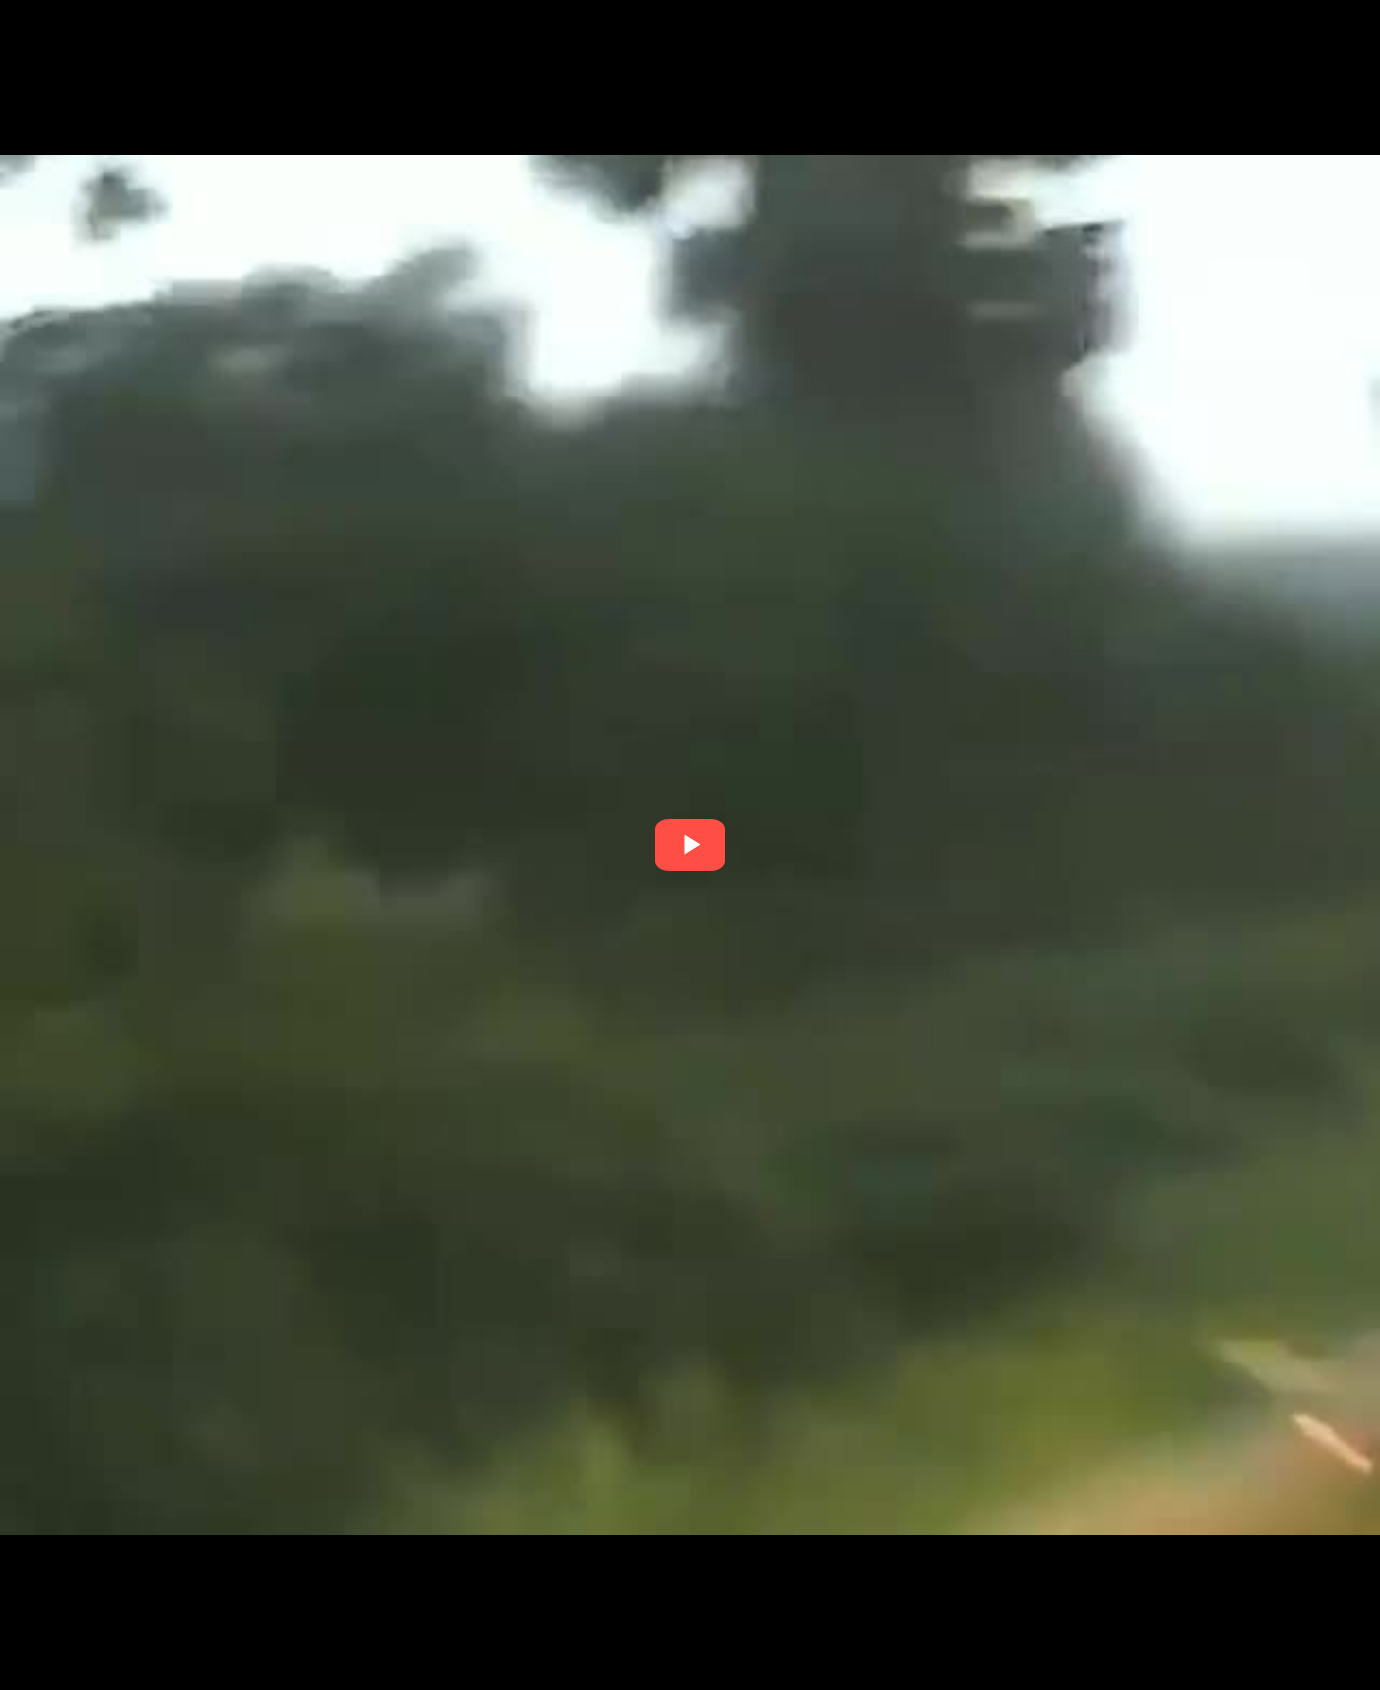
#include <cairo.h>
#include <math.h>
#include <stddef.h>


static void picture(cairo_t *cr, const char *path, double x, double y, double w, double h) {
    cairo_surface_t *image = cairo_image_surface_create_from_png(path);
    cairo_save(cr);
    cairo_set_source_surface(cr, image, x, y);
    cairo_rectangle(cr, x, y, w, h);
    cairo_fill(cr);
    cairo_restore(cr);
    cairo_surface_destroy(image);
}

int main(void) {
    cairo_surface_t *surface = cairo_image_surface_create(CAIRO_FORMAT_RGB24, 1380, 1690);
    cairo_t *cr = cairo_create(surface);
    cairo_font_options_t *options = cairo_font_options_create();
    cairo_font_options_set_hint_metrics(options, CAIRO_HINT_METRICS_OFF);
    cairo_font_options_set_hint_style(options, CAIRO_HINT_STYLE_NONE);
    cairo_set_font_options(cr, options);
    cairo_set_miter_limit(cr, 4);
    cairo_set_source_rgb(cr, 0, 0, 0);
    cairo_paint(cr);
    picture(cr, "img1.png", 0, 155, 1380, 1380);
    cairo_set_source_rgb(cr, 1, 0.306, 0.271);
    cairo_new_path(cr);
    cairo_move_to(cr, 669, 819);
    cairo_line_to(cr, 711, 819);
    cairo_curve_to(cr, 719, 819, 725, 824, 725, 829);
    cairo_line_to(cr, 725, 861);
    cairo_curve_to(cr, 725, 866, 719, 871, 711, 871);
    cairo_line_to(cr, 669, 871);
    cairo_curve_to(cr, 661, 871, 655, 866, 655, 861);
    cairo_line_to(cr, 655, 829);
    cairo_curve_to(cr, 655, 824, 661, 819, 669, 819);
    cairo_close_path(cr);
    cairo_fill(cr);
    cairo_set_source_rgb(cr, 1, 1, 1);
    cairo_new_path(cr);
    cairo_move_to(cr, 684.5, 834.5);
    cairo_line_to(cr, 684.5, 854.5);
    cairo_line_to(cr, 700.5, 844.5);
    cairo_close_path(cr);
    cairo_fill(cr);
    cairo_surface_write_to_png(surface, "page.png");
    cairo_font_options_destroy(options);
    cairo_destroy(cr);
    cairo_surface_destroy(surface);
    return 0;
}
